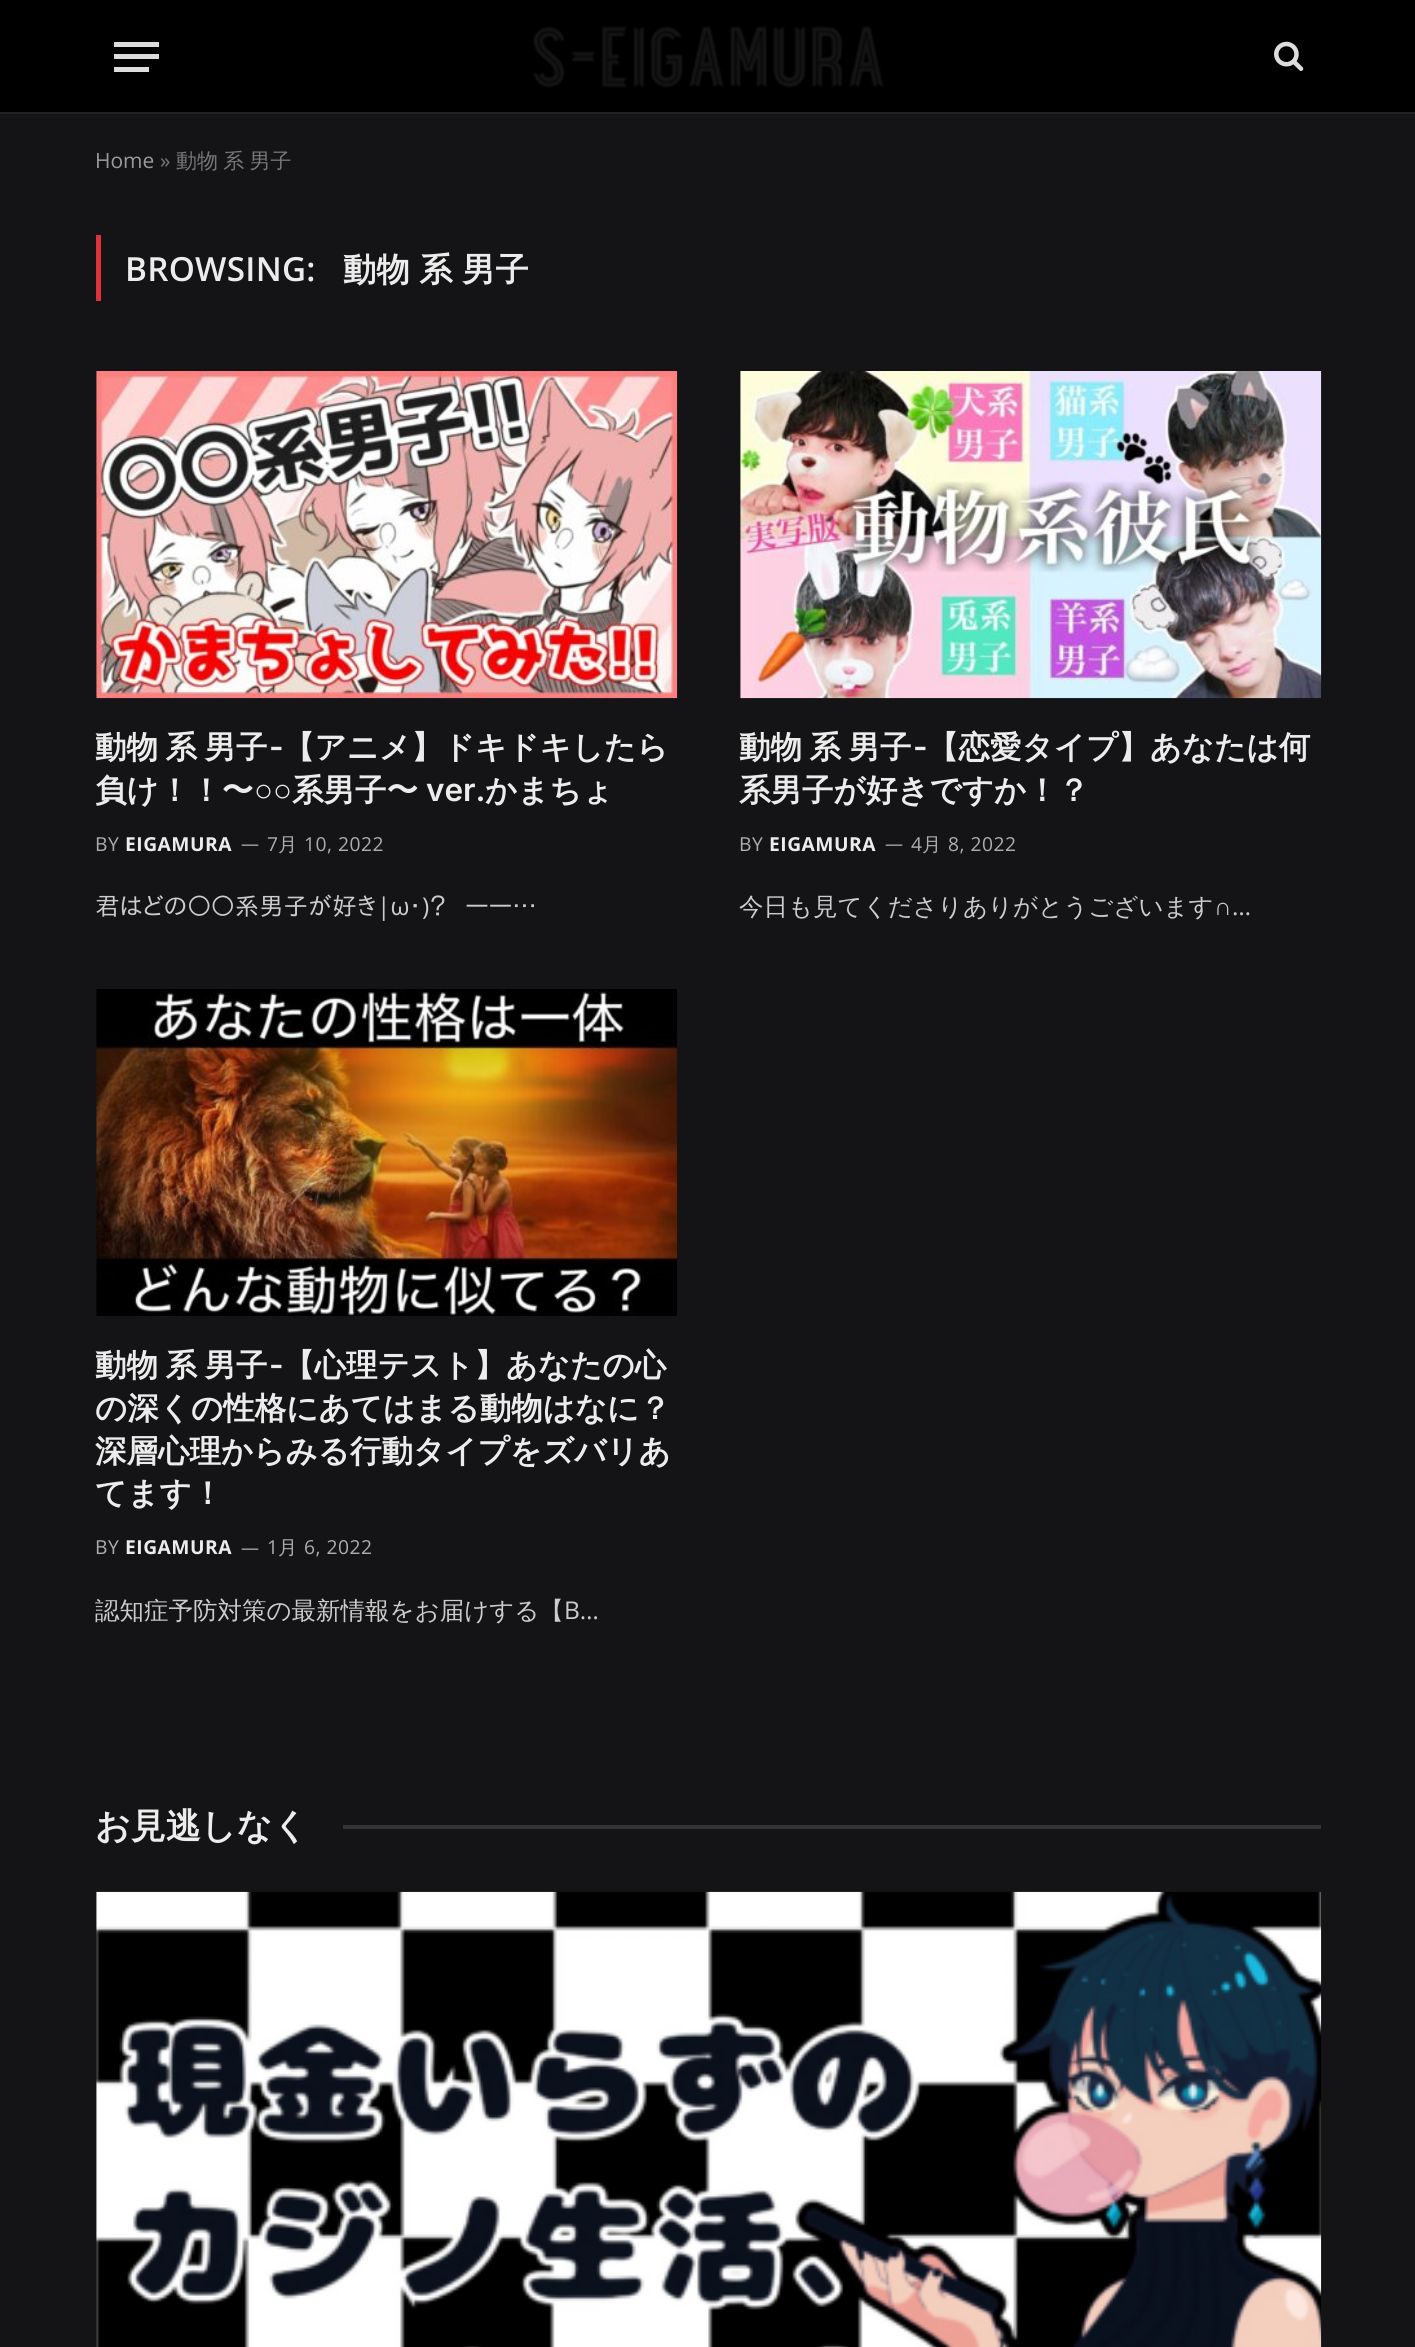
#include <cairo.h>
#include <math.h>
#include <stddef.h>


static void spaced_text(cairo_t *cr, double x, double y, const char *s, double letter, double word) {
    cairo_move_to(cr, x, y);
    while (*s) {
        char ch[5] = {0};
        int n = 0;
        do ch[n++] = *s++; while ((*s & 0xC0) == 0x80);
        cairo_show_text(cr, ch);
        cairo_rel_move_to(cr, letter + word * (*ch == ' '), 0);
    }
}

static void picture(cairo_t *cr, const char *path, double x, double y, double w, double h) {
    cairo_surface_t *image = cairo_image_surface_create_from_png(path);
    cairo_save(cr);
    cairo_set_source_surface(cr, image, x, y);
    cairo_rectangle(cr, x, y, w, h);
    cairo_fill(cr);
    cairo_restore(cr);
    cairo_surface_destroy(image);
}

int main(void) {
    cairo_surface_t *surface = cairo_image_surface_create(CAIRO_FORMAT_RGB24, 1415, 2347);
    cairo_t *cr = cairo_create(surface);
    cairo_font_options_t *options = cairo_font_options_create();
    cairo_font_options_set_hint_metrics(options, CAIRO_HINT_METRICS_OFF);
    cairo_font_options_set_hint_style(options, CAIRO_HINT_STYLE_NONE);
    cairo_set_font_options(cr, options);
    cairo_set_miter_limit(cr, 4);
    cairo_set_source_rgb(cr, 0.082, 0.082, 0.086);
    cairo_paint(cr);
    cairo_set_source_rgb(cr, 0, 0, 0);
    cairo_rectangle(cr, 0, 0, 1415, 112);
    cairo_fill(cr);
    cairo_set_source_rgb(cr, 0.133, 0.133, 0.133);
    cairo_rectangle(cr, 0, 112, 1415, 2);
    cairo_fill(cr);
    cairo_set_source_rgb(cr, 0.867, 0.867, 0.867);
    cairo_rectangle(cr, 114, 67, 35, 5);
    cairo_fill(cr);
    cairo_rectangle(cr, 114, 42, 45, 5);
    cairo_fill(cr);
    cairo_rectangle(cr, 114, 54, 45, 5);
    cairo_fill(cr);
    picture(cr, "img1.png", 533, 26, 351, 62);
    picture(cr, "img2.png", 1274, 41, 30, 30);
    cairo_select_font_face(cr, "Open Sans", CAIRO_FONT_SLANT_NORMAL, CAIRO_FONT_WEIGHT_NORMAL);
    cairo_set_font_size(cr, 21);
    cairo_set_source_rgb(cr, 0.6, 0.6, 0.6);
    cairo_move_to(cr, 95, 168);
    cairo_show_text(cr, "Home");
    cairo_set_source_rgb(cr, 0.467, 0.467, 0.467);
    cairo_move_to(cr, 160, 168);
    cairo_show_text(cr, "»");
    cairo_select_font_face(cr, "WenQuanYi Zen Hei Medium", CAIRO_FONT_SLANT_NORMAL, CAIRO_FONT_WEIGHT_NORMAL);
    spaced_text(cr, 176, 168, "動物 系 男子", 0, -1);
    cairo_set_source_rgb(cr, 0.871, 0.2, 0.231);
    cairo_rectangle(cr, 96, 235, 5, 66);
    cairo_fill(cr);
    cairo_select_font_face(cr, "Open Sans SemiBold", CAIRO_FONT_SLANT_NORMAL, CAIRO_FONT_WEIGHT_NORMAL);
    cairo_set_font_size(cr, 33.25);
    cairo_set_source_rgb(cr, 0.925, 0.925, 0.925);
    spaced_text(cr, 125, 281, "BROWSING:", 0.25, 0);
    cairo_select_font_face(cr, "WenQuanYi Zen Hei", CAIRO_FONT_SLANT_NORMAL, CAIRO_FONT_WEIGHT_BOLD);
    spaced_text(cr, 343, 281, "動物 系 男子", 0.25, -1);
    picture(cr, "img3.png", 96, 371, 582, 328);
    cairo_set_font_size(cr, 31.5);
    spaced_text(cr, 95, 758, "動物 系 男子", 0, -2);
    cairo_select_font_face(cr, "Inter SemiBold", CAIRO_FONT_SLANT_NORMAL, CAIRO_FONT_WEIGHT_NORMAL);
    cairo_move_to(cr, 269, 758);
    cairo_show_text(cr, "-");
    cairo_select_font_face(cr, "WenQuanYi Zen Hei", CAIRO_FONT_SLANT_NORMAL, CAIRO_FONT_WEIGHT_BOLD);
    cairo_move_to(cr, 283, 758);
    cairo_show_text(cr, "【アニメ】ドキドキしたら");
    cairo_move_to(cr, 95, 801);
    cairo_show_text(cr, "負け！！〜");
    cairo_select_font_face(cr, "Liberation Sans", CAIRO_FONT_SLANT_NORMAL, CAIRO_FONT_WEIGHT_BOLD);
    cairo_move_to(cr, 254, 801);
    cairo_show_text(cr, "○○");
    cairo_select_font_face(cr, "WenQuanYi Zen Hei", CAIRO_FONT_SLANT_NORMAL, CAIRO_FONT_WEIGHT_BOLD);
    cairo_move_to(cr, 292, 801);
    cairo_show_text(cr, "系男子〜");
    cairo_select_font_face(cr, "Inter SemiBold", CAIRO_FONT_SLANT_NORMAL, CAIRO_FONT_WEIGHT_NORMAL);
    cairo_move_to(cr, 426, 801);
    cairo_show_text(cr, "ver.");
    cairo_select_font_face(cr, "WenQuanYi Zen Hei", CAIRO_FONT_SLANT_NORMAL, CAIRO_FONT_WEIGHT_BOLD);
    cairo_move_to(cr, 485, 801);
    cairo_show_text(cr, "かまちょ");
    cairo_select_font_face(cr, "Open Sans", CAIRO_FONT_SLANT_NORMAL, CAIRO_FONT_WEIGHT_NORMAL);
    cairo_set_font_size(cr, 19.25);
    cairo_set_source_rgb(cr, 0.678, 0.678, 0.678);
    spaced_text(cr, 95, 851, "BY", 0.5, 0);
    cairo_select_font_face(cr, "Open Sans", CAIRO_FONT_SLANT_NORMAL, CAIRO_FONT_WEIGHT_BOLD);
    cairo_set_source_rgb(cr, 0.925, 0.925, 0.925);
    spaced_text(cr, 125, 851, "EIGAMURA", 0.5, 0);
    cairo_select_font_face(cr, "Open Sans", CAIRO_FONT_SLANT_NORMAL, CAIRO_FONT_WEIGHT_NORMAL);
    cairo_set_font_size(cr, 18);
    cairo_set_source_rgb(cr, 0.678, 0.678, 0.678);
    spaced_text(cr, 241, 850, "—", 1, 0);
    cairo_set_font_size(cr, 19.25);
    spaced_text(cr, 267, 851, "7", 0.5, 0);
    cairo_select_font_face(cr, "WenQuanYi Zen Hei Medium", CAIRO_FONT_SLANT_NORMAL, CAIRO_FONT_WEIGHT_NORMAL);
    spaced_text(cr, 278, 851, "月", 0.5, 0);
    cairo_select_font_face(cr, "Open Sans", CAIRO_FONT_SLANT_NORMAL, CAIRO_FONT_WEIGHT_NORMAL);
    spaced_text(cr, 304, 851, "10, 2022", 0.5, 0);
    cairo_select_font_face(cr, "IPAPGothic", CAIRO_FONT_SLANT_NORMAL, CAIRO_FONT_WEIGHT_NORMAL);
    cairo_set_font_size(cr, 24.5);
    cairo_set_source_rgb(cr, 0.8, 0.8, 0.8);
    cairo_move_to(cr, 95, 915);
    cairo_show_text(cr, "君はどの〇〇系男子が好き");
    cairo_select_font_face(cr, "Open Sans", CAIRO_FONT_SLANT_NORMAL, CAIRO_FONT_WEIGHT_NORMAL);
    cairo_move_to(cr, 377, 915);
    cairo_show_text(cr, "|ω");
    cairo_select_font_face(cr, "IPAPGothic", CAIRO_FONT_SLANT_NORMAL, CAIRO_FONT_WEIGHT_NORMAL);
    cairo_move_to(cr, 409, 915);
    cairo_show_text(cr, "･");
    cairo_select_font_face(cr, "Open Sans", CAIRO_FONT_SLANT_NORMAL, CAIRO_FONT_WEIGHT_NORMAL);
    cairo_move_to(cr, 422, 915);
    cairo_show_text(cr, ")");
    cairo_select_font_face(cr, "IPAPGothic", CAIRO_FONT_SLANT_NORMAL, CAIRO_FONT_WEIGHT_NORMAL);
    spaced_text(cr, 429, 915, "？ ――…", 0, 12);
    picture(cr, "img4.png", 740, 371, 582, 328);
    cairo_select_font_face(cr, "WenQuanYi Zen Hei", CAIRO_FONT_SLANT_NORMAL, CAIRO_FONT_WEIGHT_BOLD);
    cairo_set_font_size(cr, 31.5);
    cairo_set_source_rgb(cr, 0.925, 0.925, 0.925);
    spaced_text(cr, 739, 758, "動物 系 男子", 0, -2);
    cairo_select_font_face(cr, "Inter SemiBold", CAIRO_FONT_SLANT_NORMAL, CAIRO_FONT_WEIGHT_NORMAL);
    cairo_move_to(cr, 913, 758);
    cairo_show_text(cr, "-");
    cairo_select_font_face(cr, "WenQuanYi Zen Hei", CAIRO_FONT_SLANT_NORMAL, CAIRO_FONT_WEIGHT_BOLD);
    cairo_move_to(cr, 927, 758);
    cairo_show_text(cr, "【恋愛タイプ】あなたは何");
    cairo_move_to(cr, 739, 801);
    cairo_show_text(cr, "系男子が好きですか！？");
    cairo_select_font_face(cr, "Open Sans", CAIRO_FONT_SLANT_NORMAL, CAIRO_FONT_WEIGHT_NORMAL);
    cairo_set_font_size(cr, 19.25);
    cairo_set_source_rgb(cr, 0.678, 0.678, 0.678);
    spaced_text(cr, 739, 851, "BY", 0.5, 0);
    cairo_select_font_face(cr, "Open Sans", CAIRO_FONT_SLANT_NORMAL, CAIRO_FONT_WEIGHT_BOLD);
    cairo_set_source_rgb(cr, 0.925, 0.925, 0.925);
    spaced_text(cr, 769, 851, "EIGAMURA", 0.5, 0);
    cairo_select_font_face(cr, "Open Sans", CAIRO_FONT_SLANT_NORMAL, CAIRO_FONT_WEIGHT_NORMAL);
    cairo_set_font_size(cr, 18);
    cairo_set_source_rgb(cr, 0.678, 0.678, 0.678);
    spaced_text(cr, 885, 850, "—", 1, 0);
    cairo_set_font_size(cr, 19.25);
    spaced_text(cr, 911, 851, "4", 0.5, 0);
    cairo_select_font_face(cr, "WenQuanYi Zen Hei Medium", CAIRO_FONT_SLANT_NORMAL, CAIRO_FONT_WEIGHT_NORMAL);
    spaced_text(cr, 922, 851, "月", 0.5, 0);
    cairo_select_font_face(cr, "Open Sans", CAIRO_FONT_SLANT_NORMAL, CAIRO_FONT_WEIGHT_NORMAL);
    spaced_text(cr, 948, 851, "8, 2022", 0.5, 0);
    cairo_select_font_face(cr, "WenQuanYi Zen Hei Medium", CAIRO_FONT_SLANT_NORMAL, CAIRO_FONT_WEIGHT_NORMAL);
    cairo_set_font_size(cr, 24.5);
    cairo_set_source_rgb(cr, 0.8, 0.8, 0.8);
    cairo_move_to(cr, 739, 915);
    cairo_show_text(cr, "今日も見てくださりありがとうございます");
    cairo_select_font_face(cr, "Liberation Sans", CAIRO_FONT_SLANT_NORMAL, CAIRO_FONT_WEIGHT_NORMAL);
    cairo_move_to(cr, 1214, 915);
    cairo_show_text(cr, "∩");
    cairo_select_font_face(cr, "Open Sans", CAIRO_FONT_SLANT_NORMAL, CAIRO_FONT_WEIGHT_NORMAL);
    cairo_move_to(cr, 1232, 915);
    cairo_show_text(cr, "…");
    picture(cr, "img5.png", 96, 989, 582, 327);
    cairo_select_font_face(cr, "WenQuanYi Zen Hei", CAIRO_FONT_SLANT_NORMAL, CAIRO_FONT_WEIGHT_BOLD);
    cairo_set_font_size(cr, 31.5);
    cairo_set_source_rgb(cr, 0.925, 0.925, 0.925);
    spaced_text(cr, 95, 1376, "動物 系 男子", 0, -2);
    cairo_select_font_face(cr, "Inter SemiBold", CAIRO_FONT_SLANT_NORMAL, CAIRO_FONT_WEIGHT_NORMAL);
    cairo_move_to(cr, 269, 1376);
    cairo_show_text(cr, "-");
    cairo_select_font_face(cr, "WenQuanYi Zen Hei", CAIRO_FONT_SLANT_NORMAL, CAIRO_FONT_WEIGHT_BOLD);
    cairo_move_to(cr, 283, 1376);
    cairo_show_text(cr, "【心理テスト】あなたの心");
    cairo_move_to(cr, 95, 1419);
    cairo_show_text(cr, "の深くの性格にあてはまる動物はなに？");
    cairo_move_to(cr, 95, 1462);
    cairo_show_text(cr, "深層心理からみる行動タイプをズバリあ");
    cairo_move_to(cr, 95, 1504);
    cairo_show_text(cr, "てます！");
    cairo_select_font_face(cr, "Open Sans", CAIRO_FONT_SLANT_NORMAL, CAIRO_FONT_WEIGHT_NORMAL);
    cairo_set_font_size(cr, 19.25);
    cairo_set_source_rgb(cr, 0.678, 0.678, 0.678);
    spaced_text(cr, 95, 1554, "BY", 0.5, 0);
    cairo_select_font_face(cr, "Open Sans", CAIRO_FONT_SLANT_NORMAL, CAIRO_FONT_WEIGHT_BOLD);
    cairo_set_source_rgb(cr, 0.925, 0.925, 0.925);
    spaced_text(cr, 125, 1554, "EIGAMURA", 0.5, 0);
    cairo_select_font_face(cr, "Open Sans", CAIRO_FONT_SLANT_NORMAL, CAIRO_FONT_WEIGHT_NORMAL);
    cairo_set_font_size(cr, 18);
    cairo_set_source_rgb(cr, 0.678, 0.678, 0.678);
    spaced_text(cr, 241, 1554, "—", 1, 0);
    cairo_set_font_size(cr, 19.25);
    spaced_text(cr, 267, 1554, "1", 0.5, 0);
    cairo_select_font_face(cr, "WenQuanYi Zen Hei Medium", CAIRO_FONT_SLANT_NORMAL, CAIRO_FONT_WEIGHT_NORMAL);
    spaced_text(cr, 278, 1554, "月", 0.5, 0);
    cairo_select_font_face(cr, "Open Sans", CAIRO_FONT_SLANT_NORMAL, CAIRO_FONT_WEIGHT_NORMAL);
    spaced_text(cr, 304, 1554, "6, 2022", 0.5, 0);
    cairo_select_font_face(cr, "WenQuanYi Zen Hei Medium", CAIRO_FONT_SLANT_NORMAL, CAIRO_FONT_WEIGHT_NORMAL);
    cairo_set_font_size(cr, 24.5);
    cairo_set_source_rgb(cr, 0.8, 0.8, 0.8);
    cairo_move_to(cr, 95, 1619);
    cairo_show_text(cr, "認知症予防対策の最新情報をお届けする【");
    cairo_select_font_face(cr, "Open Sans", CAIRO_FONT_SLANT_NORMAL, CAIRO_FONT_WEIGHT_NORMAL);
    cairo_move_to(cr, 564, 1619);
    cairo_show_text(cr, "B…");
    cairo_select_font_face(cr, "WenQuanYi Zen Hei", CAIRO_FONT_SLANT_NORMAL, CAIRO_FONT_WEIGHT_BOLD);
    cairo_set_font_size(cr, 35);
    cairo_set_source_rgb(cr, 0.925, 0.925, 0.925);
    cairo_move_to(cr, 95, 1838);
    cairo_show_text(cr, "お見逃しなく");
    cairo_set_source_rgb(cr, 0.2, 0.2, 0.204);
    cairo_rectangle(cr, 343, 1825, 978, 4);
    cairo_fill(cr);
    picture(cr, "img6.png", 96, 1891, 1226, 456);
    cairo_surface_write_to_png(surface, "page.png");
    cairo_font_options_destroy(options);
    cairo_destroy(cr);
    cairo_surface_destroy(surface);
    return 0;
}
